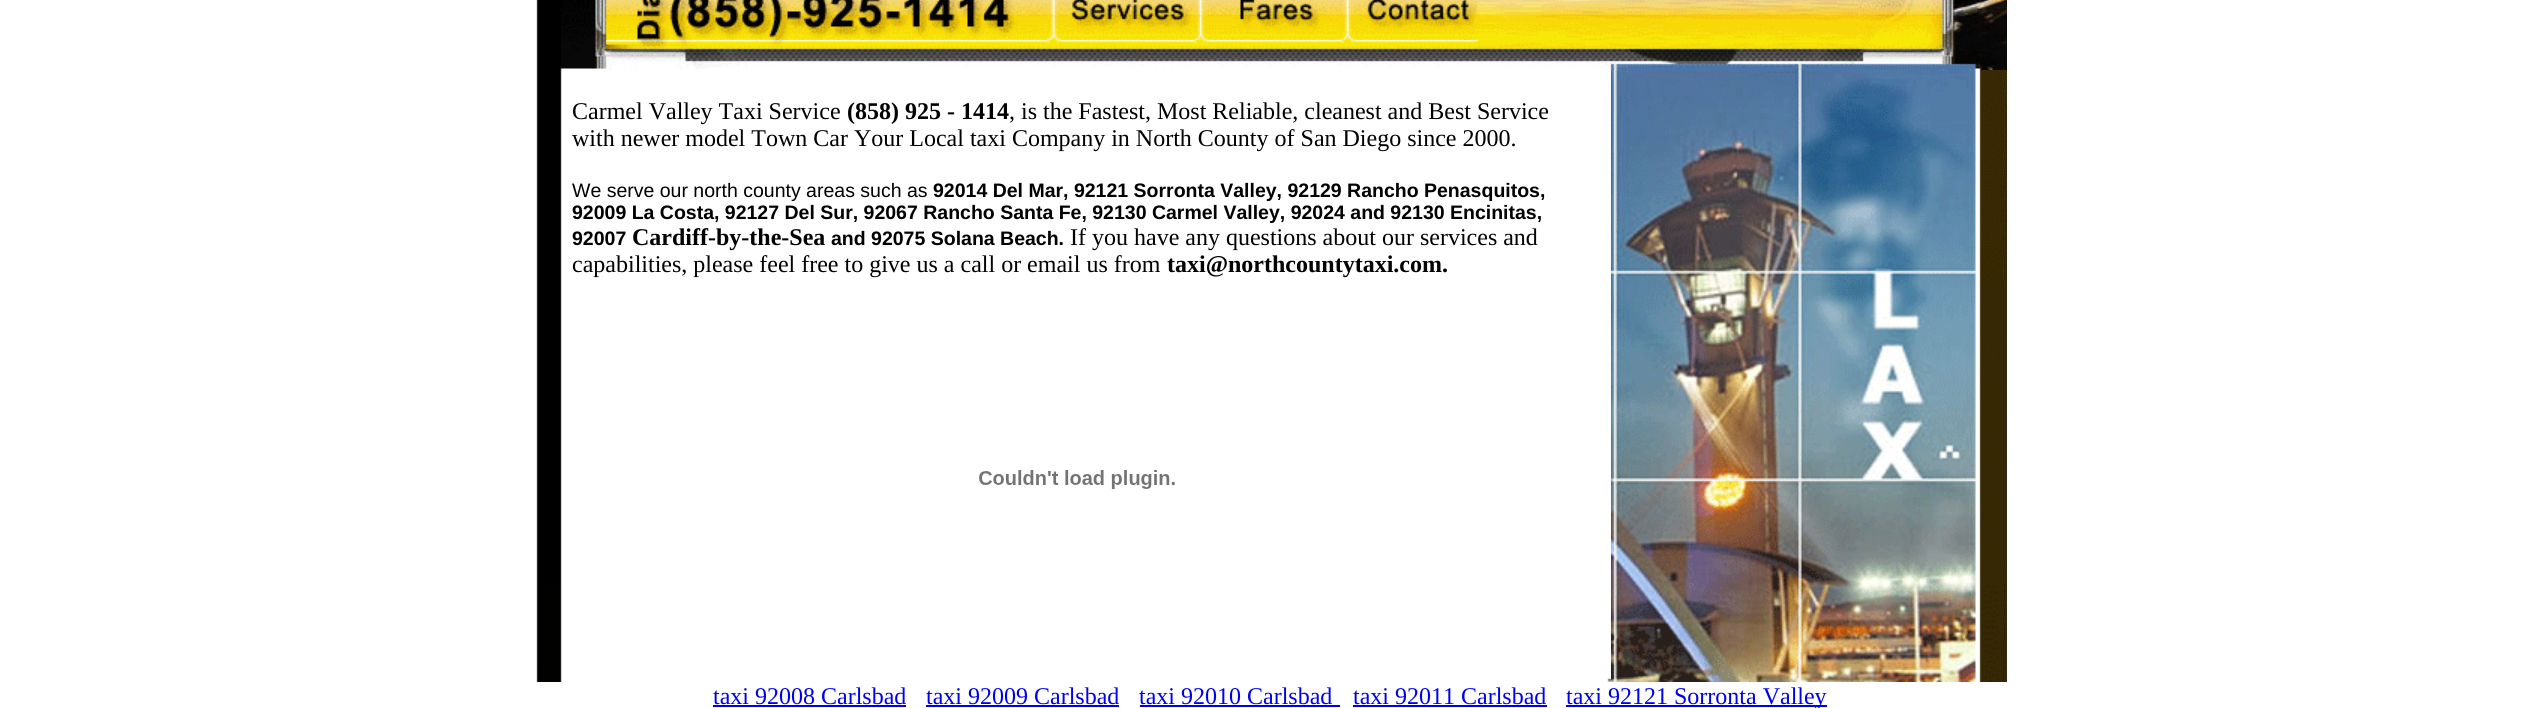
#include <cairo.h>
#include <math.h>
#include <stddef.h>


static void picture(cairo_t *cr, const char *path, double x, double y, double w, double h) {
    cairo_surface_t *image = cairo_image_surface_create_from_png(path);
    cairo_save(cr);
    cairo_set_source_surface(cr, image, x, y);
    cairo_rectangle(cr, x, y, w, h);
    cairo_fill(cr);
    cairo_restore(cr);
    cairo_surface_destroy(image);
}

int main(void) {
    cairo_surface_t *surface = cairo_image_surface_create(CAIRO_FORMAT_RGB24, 2539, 708);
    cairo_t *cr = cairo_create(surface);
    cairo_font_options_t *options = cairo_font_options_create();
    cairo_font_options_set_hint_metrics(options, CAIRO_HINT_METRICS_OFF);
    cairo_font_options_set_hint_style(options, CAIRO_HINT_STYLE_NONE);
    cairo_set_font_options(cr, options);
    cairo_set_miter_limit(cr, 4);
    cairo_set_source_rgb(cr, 1, 1, 1);
    cairo_paint(cr);
    picture(cr, "img1.png", 536, 0, 1471, 70);
    picture(cr, "img2.png", 536, 70, 26, 612);
    cairo_select_font_face(cr, "Liberation Serif", CAIRO_FONT_SLANT_NORMAL, CAIRO_FONT_WEIGHT_NORMAL);
    cairo_set_font_size(cr, 24);
    cairo_set_source_rgb(cr, 0, 0, 0);
    cairo_move_to(cr, 572, 119);
    cairo_show_text(cr, "Carmel Valley Taxi Service");
    cairo_select_font_face(cr, "Liberation Serif", CAIRO_FONT_SLANT_NORMAL, CAIRO_FONT_WEIGHT_BOLD);
    cairo_move_to(cr, 847, 119);
    cairo_show_text(cr, "(858) 925 - 1414");
    cairo_select_font_face(cr, "Liberation Serif", CAIRO_FONT_SLANT_NORMAL, CAIRO_FONT_WEIGHT_NORMAL);
    cairo_move_to(cr, 1009, 119);
    cairo_show_text(cr, ", is the Fastest, Most Reliable, cleanest and Best Service");
    cairo_move_to(cr, 572, 146);
    cairo_show_text(cr, "with newer model Town Car Your Local taxi Company in North County of San Diego since 2000.");
    cairo_select_font_face(cr, "Liberation Sans", CAIRO_FONT_SLANT_NORMAL, CAIRO_FONT_WEIGHT_NORMAL);
    cairo_set_font_size(cr, 19.5);
    cairo_move_to(cr, 572, 197);
    cairo_show_text(cr, "We serve our north county areas such as");
    cairo_select_font_face(cr, "Liberation Sans", CAIRO_FONT_SLANT_NORMAL, CAIRO_FONT_WEIGHT_BOLD);
    cairo_move_to(cr, 933, 197);
    cairo_show_text(cr, "92014 Del Mar, 92121 Sorronta Valley, 92129 Rancho Penasquitos,");
    cairo_move_to(cr, 572, 219);
    cairo_show_text(cr, "92009 La Costa, 92127 Del Sur, 92067 Rancho Santa Fe, 92130 Carmel Valley, 92024 and 92130 Encinitas,");
    cairo_move_to(cr, 572, 245);
    cairo_show_text(cr, "92007");
    cairo_select_font_face(cr, "Liberation Serif", CAIRO_FONT_SLANT_NORMAL, CAIRO_FONT_WEIGHT_BOLD);
    cairo_set_font_size(cr, 24);
    cairo_move_to(cr, 632, 245);
    cairo_show_text(cr, "Cardiff-by-the-Sea");
    cairo_select_font_face(cr, "Liberation Sans", CAIRO_FONT_SLANT_NORMAL, CAIRO_FONT_WEIGHT_BOLD);
    cairo_set_font_size(cr, 19.5);
    cairo_move_to(cr, 831, 245);
    cairo_show_text(cr, "and 92075 Solana Beach.");
    cairo_select_font_face(cr, "Liberation Serif", CAIRO_FONT_SLANT_NORMAL, CAIRO_FONT_WEIGHT_NORMAL);
    cairo_set_font_size(cr, 24);
    cairo_move_to(cr, 1070, 245);
    cairo_show_text(cr, "If you have any questions about our services and");
    cairo_move_to(cr, 572, 272);
    cairo_show_text(cr, "capabilities, please feel free to give us a call or email us from");
    cairo_select_font_face(cr, "Liberation Serif", CAIRO_FONT_SLANT_NORMAL, CAIRO_FONT_WEIGHT_BOLD);
    cairo_move_to(cr, 1167, 272);
    cairo_show_text(cr, "taxi@northcountytaxi.com.");
    picture(cr, "img3.png", 979, 470, 196, 19);
    picture(cr, "img4.png", 1611, 70, 366, 612);
    picture(cr, "img5.png", 1979, 70, 28, 612);
    picture(cr, "img6.png", 1607, 678, 4, 4);
    cairo_select_font_face(cr, "Liberation Serif", CAIRO_FONT_SLANT_NORMAL, CAIRO_FONT_WEIGHT_NORMAL);
    cairo_set_source_rgb(cr, 0, 0, 0.933);
    cairo_move_to(cr, 713, 704);
    cairo_show_text(cr, "taxi 92008 Carlsbad");
    cairo_rectangle(cr, 713, 705, 193, 2);
    cairo_fill(cr);
    cairo_move_to(cr, 926, 704);
    cairo_show_text(cr, "taxi 92009 Carlsbad");
    cairo_rectangle(cr, 926, 705, 193, 2);
    cairo_fill(cr);
    cairo_move_to(cr, 1139, 704);
    cairo_show_text(cr, "taxi 92010 Carlsbad");
    cairo_rectangle(cr, 1140, 705, 200, 2);
    cairo_fill(cr);
    cairo_move_to(cr, 1353, 704);
    cairo_show_text(cr, "taxi 92011 Carlsbad");
    cairo_rectangle(cr, 1353, 705, 194, 2);
    cairo_fill(cr);
    cairo_rectangle(cr, 1566, 705, 261, 2);
    cairo_fill(cr);
    cairo_move_to(cr, 1566, 704);
    cairo_show_text(cr, "taxi 92121 Sorronta Valley");
    cairo_surface_write_to_png(surface, "page.png");
    cairo_font_options_destroy(options);
    cairo_destroy(cr);
    cairo_surface_destroy(surface);
    return 0;
}
